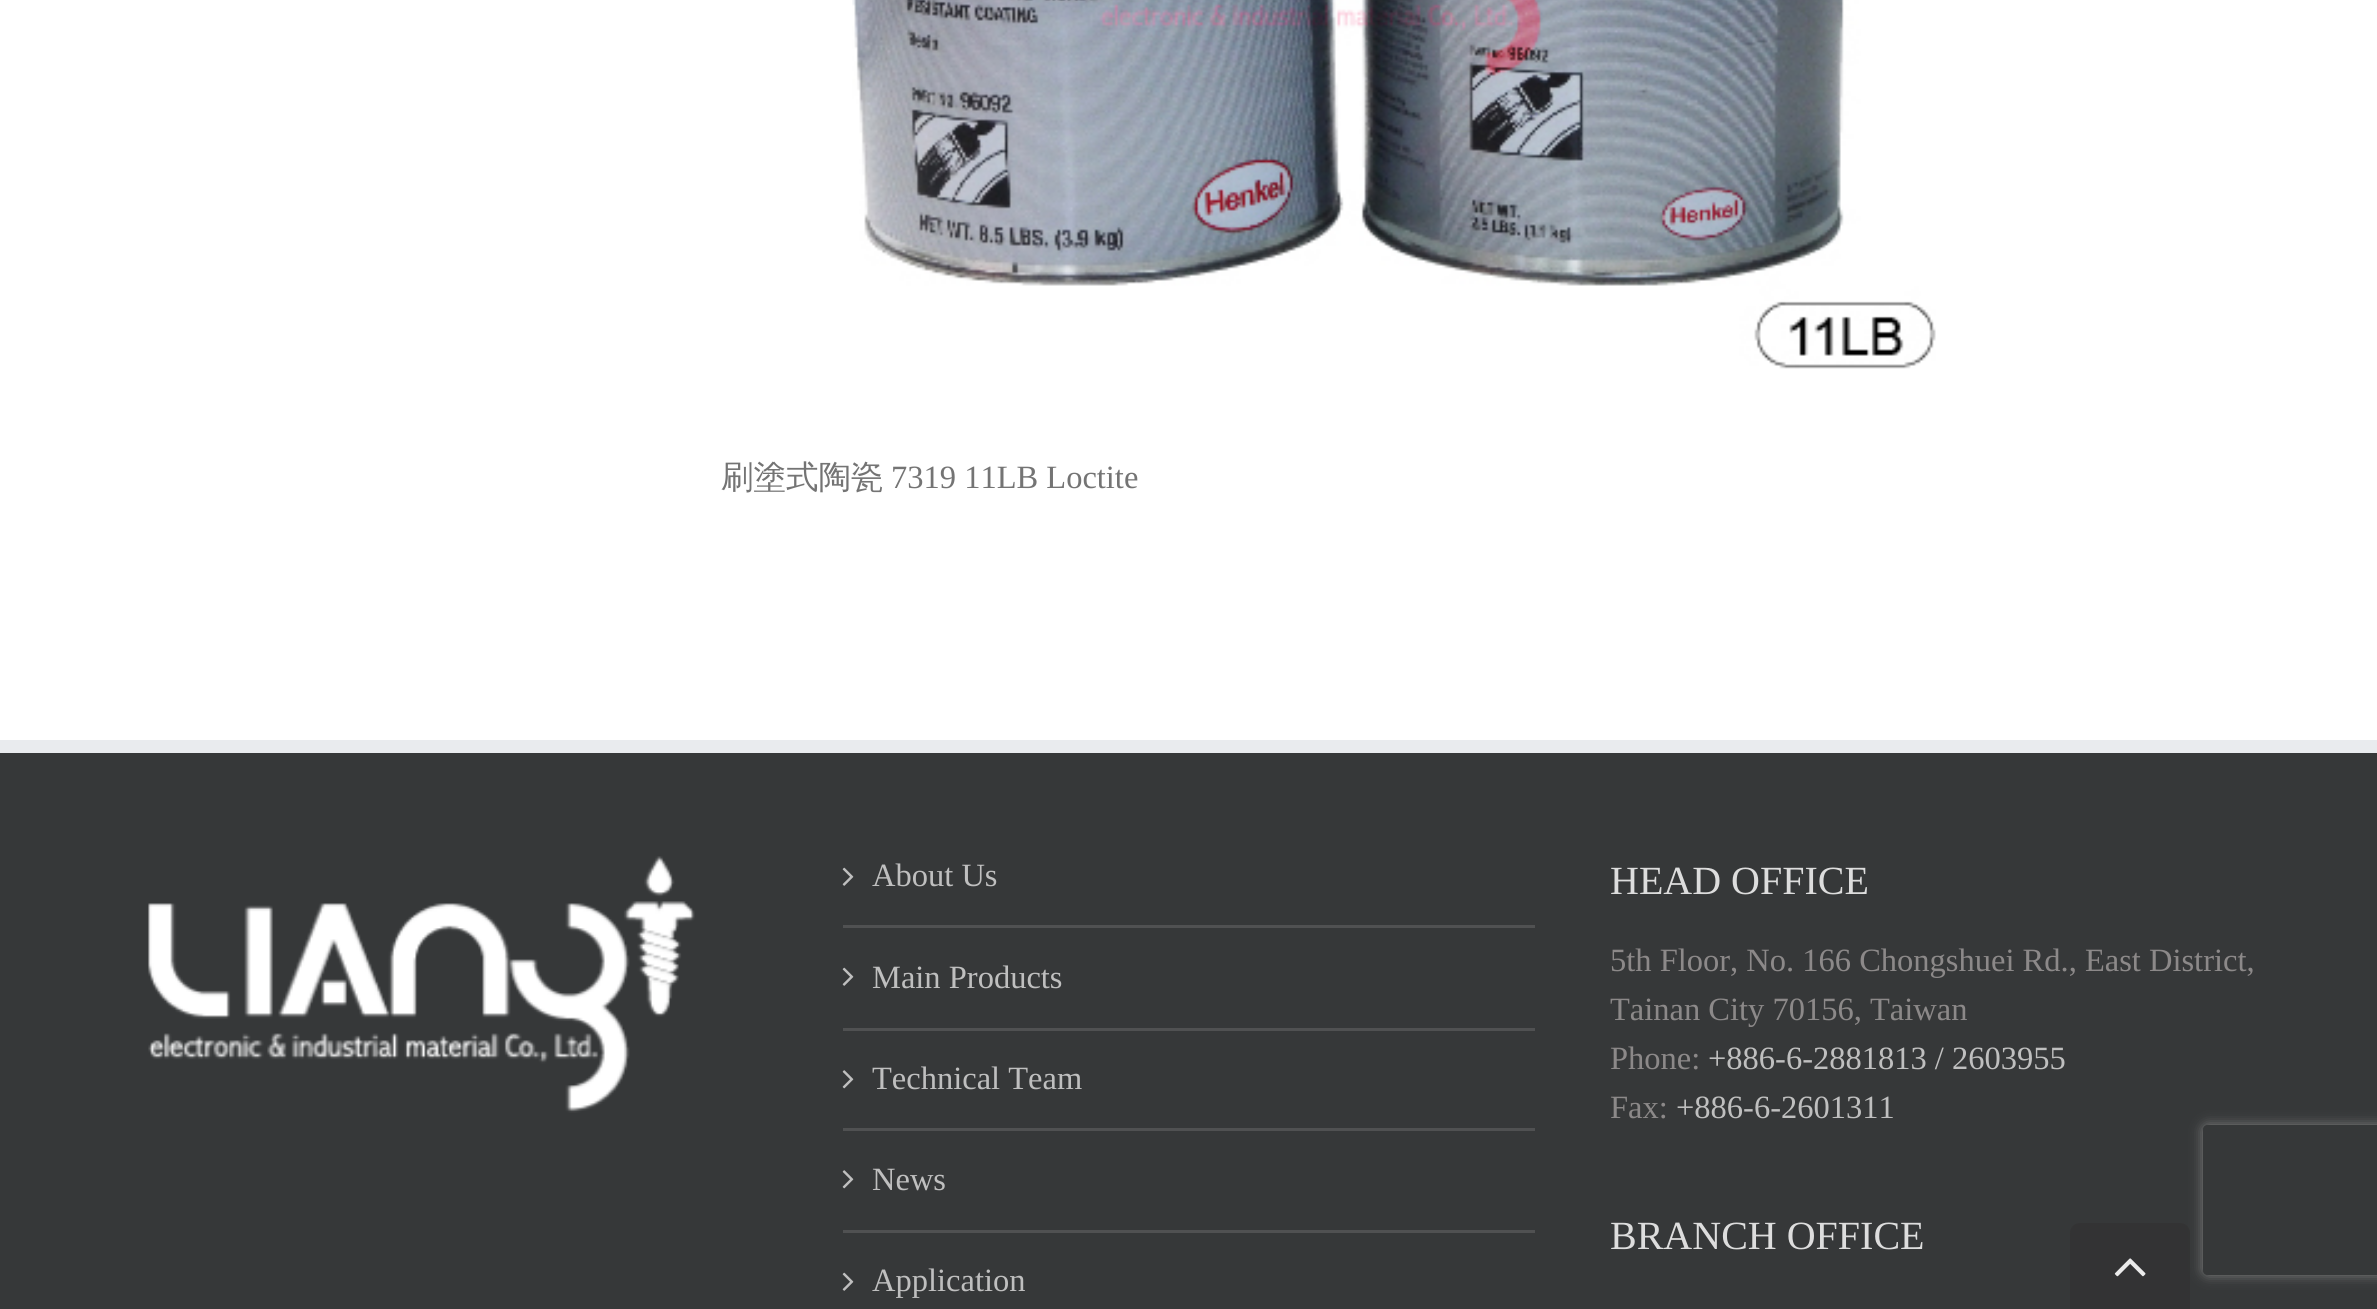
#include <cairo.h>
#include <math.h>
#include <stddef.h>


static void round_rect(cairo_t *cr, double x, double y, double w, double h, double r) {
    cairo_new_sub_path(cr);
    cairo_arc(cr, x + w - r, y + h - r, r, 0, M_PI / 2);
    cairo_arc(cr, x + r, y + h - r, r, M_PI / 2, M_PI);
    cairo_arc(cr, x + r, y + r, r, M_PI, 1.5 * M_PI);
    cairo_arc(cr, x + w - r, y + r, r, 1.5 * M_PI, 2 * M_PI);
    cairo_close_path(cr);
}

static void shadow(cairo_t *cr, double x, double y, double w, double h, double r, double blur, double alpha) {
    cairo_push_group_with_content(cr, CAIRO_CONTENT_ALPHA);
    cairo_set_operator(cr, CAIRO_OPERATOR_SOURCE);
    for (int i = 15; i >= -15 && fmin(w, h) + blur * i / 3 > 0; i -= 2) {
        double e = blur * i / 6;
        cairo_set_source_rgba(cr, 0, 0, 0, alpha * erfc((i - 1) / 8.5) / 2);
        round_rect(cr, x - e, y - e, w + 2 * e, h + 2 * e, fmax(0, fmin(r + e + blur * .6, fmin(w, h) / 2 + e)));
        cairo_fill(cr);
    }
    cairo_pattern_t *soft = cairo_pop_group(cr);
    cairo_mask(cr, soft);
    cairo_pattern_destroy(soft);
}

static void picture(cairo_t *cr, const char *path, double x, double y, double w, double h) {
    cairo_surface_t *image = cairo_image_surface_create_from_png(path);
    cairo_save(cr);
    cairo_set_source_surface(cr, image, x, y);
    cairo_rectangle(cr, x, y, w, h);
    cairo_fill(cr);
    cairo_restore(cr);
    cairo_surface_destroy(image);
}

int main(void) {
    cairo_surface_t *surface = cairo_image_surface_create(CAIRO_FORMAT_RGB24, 2377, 1309);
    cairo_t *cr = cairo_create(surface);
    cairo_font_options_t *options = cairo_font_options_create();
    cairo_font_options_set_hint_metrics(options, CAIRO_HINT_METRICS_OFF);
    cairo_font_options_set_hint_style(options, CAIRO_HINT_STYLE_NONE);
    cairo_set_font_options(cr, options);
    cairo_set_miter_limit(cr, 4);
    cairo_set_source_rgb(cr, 1, 1, 1);
    cairo_paint(cr);
    picture(cr, "img1.png", 852, 0, 1084, 369);
    cairo_select_font_face(cr, "WenQuanYi Zen Hei Medium", CAIRO_FONT_SLANT_NORMAL, CAIRO_FONT_WEIGHT_NORMAL);
    cairo_set_font_size(cr, 32.5);
    cairo_set_source_rgb(cr, 0.455, 0.455, 0.455);
    cairo_move_to(cr, 721, 488);
    cairo_show_text(cr, "刷塗式陶瓷");
    cairo_select_font_face(cr, "Liberation Serif", CAIRO_FONT_SLANT_NORMAL, CAIRO_FONT_WEIGHT_NORMAL);
    cairo_move_to(cr, 891, 488);
    cairo_show_text(cr, "7319 11LB Loctite");
    cairo_set_source_rgb(cr, 0.212, 0.22, 0.224);
    cairo_rectangle(cr, 0, 753, 2377, 556);
    cairo_fill(cr);
    cairo_set_source_rgb(cr, 0.914, 0.918, 0.933);
    cairo_rectangle(cr, 0, 740, 2377, 13);
    cairo_fill(cr);
    picture(cr, "img2.png", 148, 856, 547, 257);
    cairo_set_source_rgb(cr, 0.314, 0.318, 0.322);
    cairo_rectangle(cr, 843, 925, 692, 3);
    cairo_fill(cr);
    picture(cr, "img3.png", 842, 867, 12, 19);
    cairo_set_source_rgb(cr, 0.749, 0.749, 0.749);
    cairo_move_to(cr, 872, 886);
    cairo_show_text(cr, "About Us");
    cairo_set_source_rgb(cr, 0.314, 0.318, 0.322);
    cairo_rectangle(cr, 843, 1028, 692, 3);
    cairo_fill(cr);
    picture(cr, "img3.png", 842, 967, 12, 19);
    cairo_set_source_rgb(cr, 0.749, 0.749, 0.749);
    cairo_move_to(cr, 872, 988);
    cairo_show_text(cr, "Main Products");
    cairo_set_source_rgb(cr, 0.314, 0.318, 0.322);
    cairo_rectangle(cr, 843, 1128, 692, 3);
    cairo_fill(cr);
    picture(cr, "img4.png", 842, 1070, 12, 19);
    cairo_set_source_rgb(cr, 0.749, 0.749, 0.749);
    cairo_move_to(cr, 872, 1089);
    cairo_show_text(cr, "Technical Team");
    cairo_set_source_rgb(cr, 0.314, 0.318, 0.322);
    cairo_rectangle(cr, 843, 1230, 692, 3);
    cairo_fill(cr);
    picture(cr, "img4.png", 842, 1170, 12, 19);
    cairo_set_source_rgb(cr, 0.749, 0.749, 0.749);
    cairo_move_to(cr, 872, 1190);
    cairo_show_text(cr, "News");
    picture(cr, "img3.png", 842, 1272, 12, 19);
    cairo_move_to(cr, 872, 1291);
    cairo_show_text(cr, "Application");
    cairo_set_font_size(cr, 40);
    cairo_set_source_rgb(cr, 0.867, 0.867, 0.867);
    cairo_move_to(cr, 1610, 894);
    cairo_show_text(cr, "HEAD OFFICE");
    cairo_set_font_size(cr, 32.5);
    cairo_set_source_rgb(cr, 0.549, 0.537, 0.537);
    cairo_move_to(cr, 1610, 971);
    cairo_show_text(cr, "5th Floor, No. 166 Chongshuei Rd., East District,");
    cairo_move_to(cr, 1610, 1020);
    cairo_show_text(cr, "Tainan City 70156, Taiwan");
    cairo_move_to(cr, 1610, 1069);
    cairo_show_text(cr, "Phone:");
    cairo_set_source_rgb(cr, 0.749, 0.749, 0.749);
    cairo_move_to(cr, 1708, 1069);
    cairo_show_text(cr, "+886-6-2881813 / 2603955");
    cairo_set_source_rgb(cr, 0.549, 0.537, 0.537);
    cairo_move_to(cr, 1610, 1118);
    cairo_show_text(cr, "Fax:");
    cairo_set_source_rgb(cr, 0.749, 0.749, 0.749);
    cairo_move_to(cr, 1676, 1118);
    cairo_show_text(cr, "+886-6-2601311");
    cairo_set_font_size(cr, 40);
    cairo_set_source_rgb(cr, 0.867, 0.867, 0.867);
    cairo_move_to(cr, 1610, 1249);
    cairo_show_text(cr, "BRANCH OFFICE");
    cairo_save(cr);
    cairo_set_fill_rule(cr, CAIRO_FILL_RULE_EVEN_ODD);
    cairo_new_path(cr);
    cairo_move_to(cr, 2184, 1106);
    cairo_line_to(cr, 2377, 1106);
    cairo_line_to(cr, 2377, 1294);
    cairo_line_to(cr, 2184, 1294);
    cairo_close_path(cr);
    cairo_move_to(cr, 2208, 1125);
    cairo_line_to(cr, 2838, 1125);
    cairo_curve_to(cr, 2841, 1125, 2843, 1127, 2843, 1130);
    cairo_line_to(cr, 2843, 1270);
    cairo_curve_to(cr, 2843, 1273, 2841, 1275, 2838, 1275);
    cairo_line_to(cr, 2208, 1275);
    cairo_curve_to(cr, 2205, 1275, 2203, 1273, 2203, 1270);
    cairo_line_to(cr, 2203, 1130);
    cairo_curve_to(cr, 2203, 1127, 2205, 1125, 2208, 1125);
    cairo_close_path(cr);
    cairo_clip(cr);
    cairo_set_source_rgb(cr, 0.502, 0.502, 0.502);
    shadow(cr, 2203, 1125, 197, 150, 5, 6, 1);
    cairo_restore(cr);
    cairo_set_source_rgba(cr, 0.2, 0.2, 0.2, 0.9);
    cairo_new_path(cr);
    cairo_move_to(cr, 2080, 1223);
    cairo_line_to(cr, 2180, 1223);
    cairo_curve_to(cr, 2185.5, 1223, 2190, 1227.5, 2190, 1233);
    cairo_line_to(cr, 2190, 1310);
    cairo_line_to(cr, 2070, 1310);
    cairo_line_to(cr, 2070, 1233);
    cairo_curve_to(cr, 2070, 1227.5, 2074.5, 1223, 2080, 1223);
    cairo_close_path(cr);
    cairo_fill(cr);
    picture(cr, "img5.png", 2114, 1258, 32, 19);
    cairo_surface_write_to_png(surface, "page.png");
    cairo_font_options_destroy(options);
    cairo_destroy(cr);
    cairo_surface_destroy(surface);
    return 0;
}
